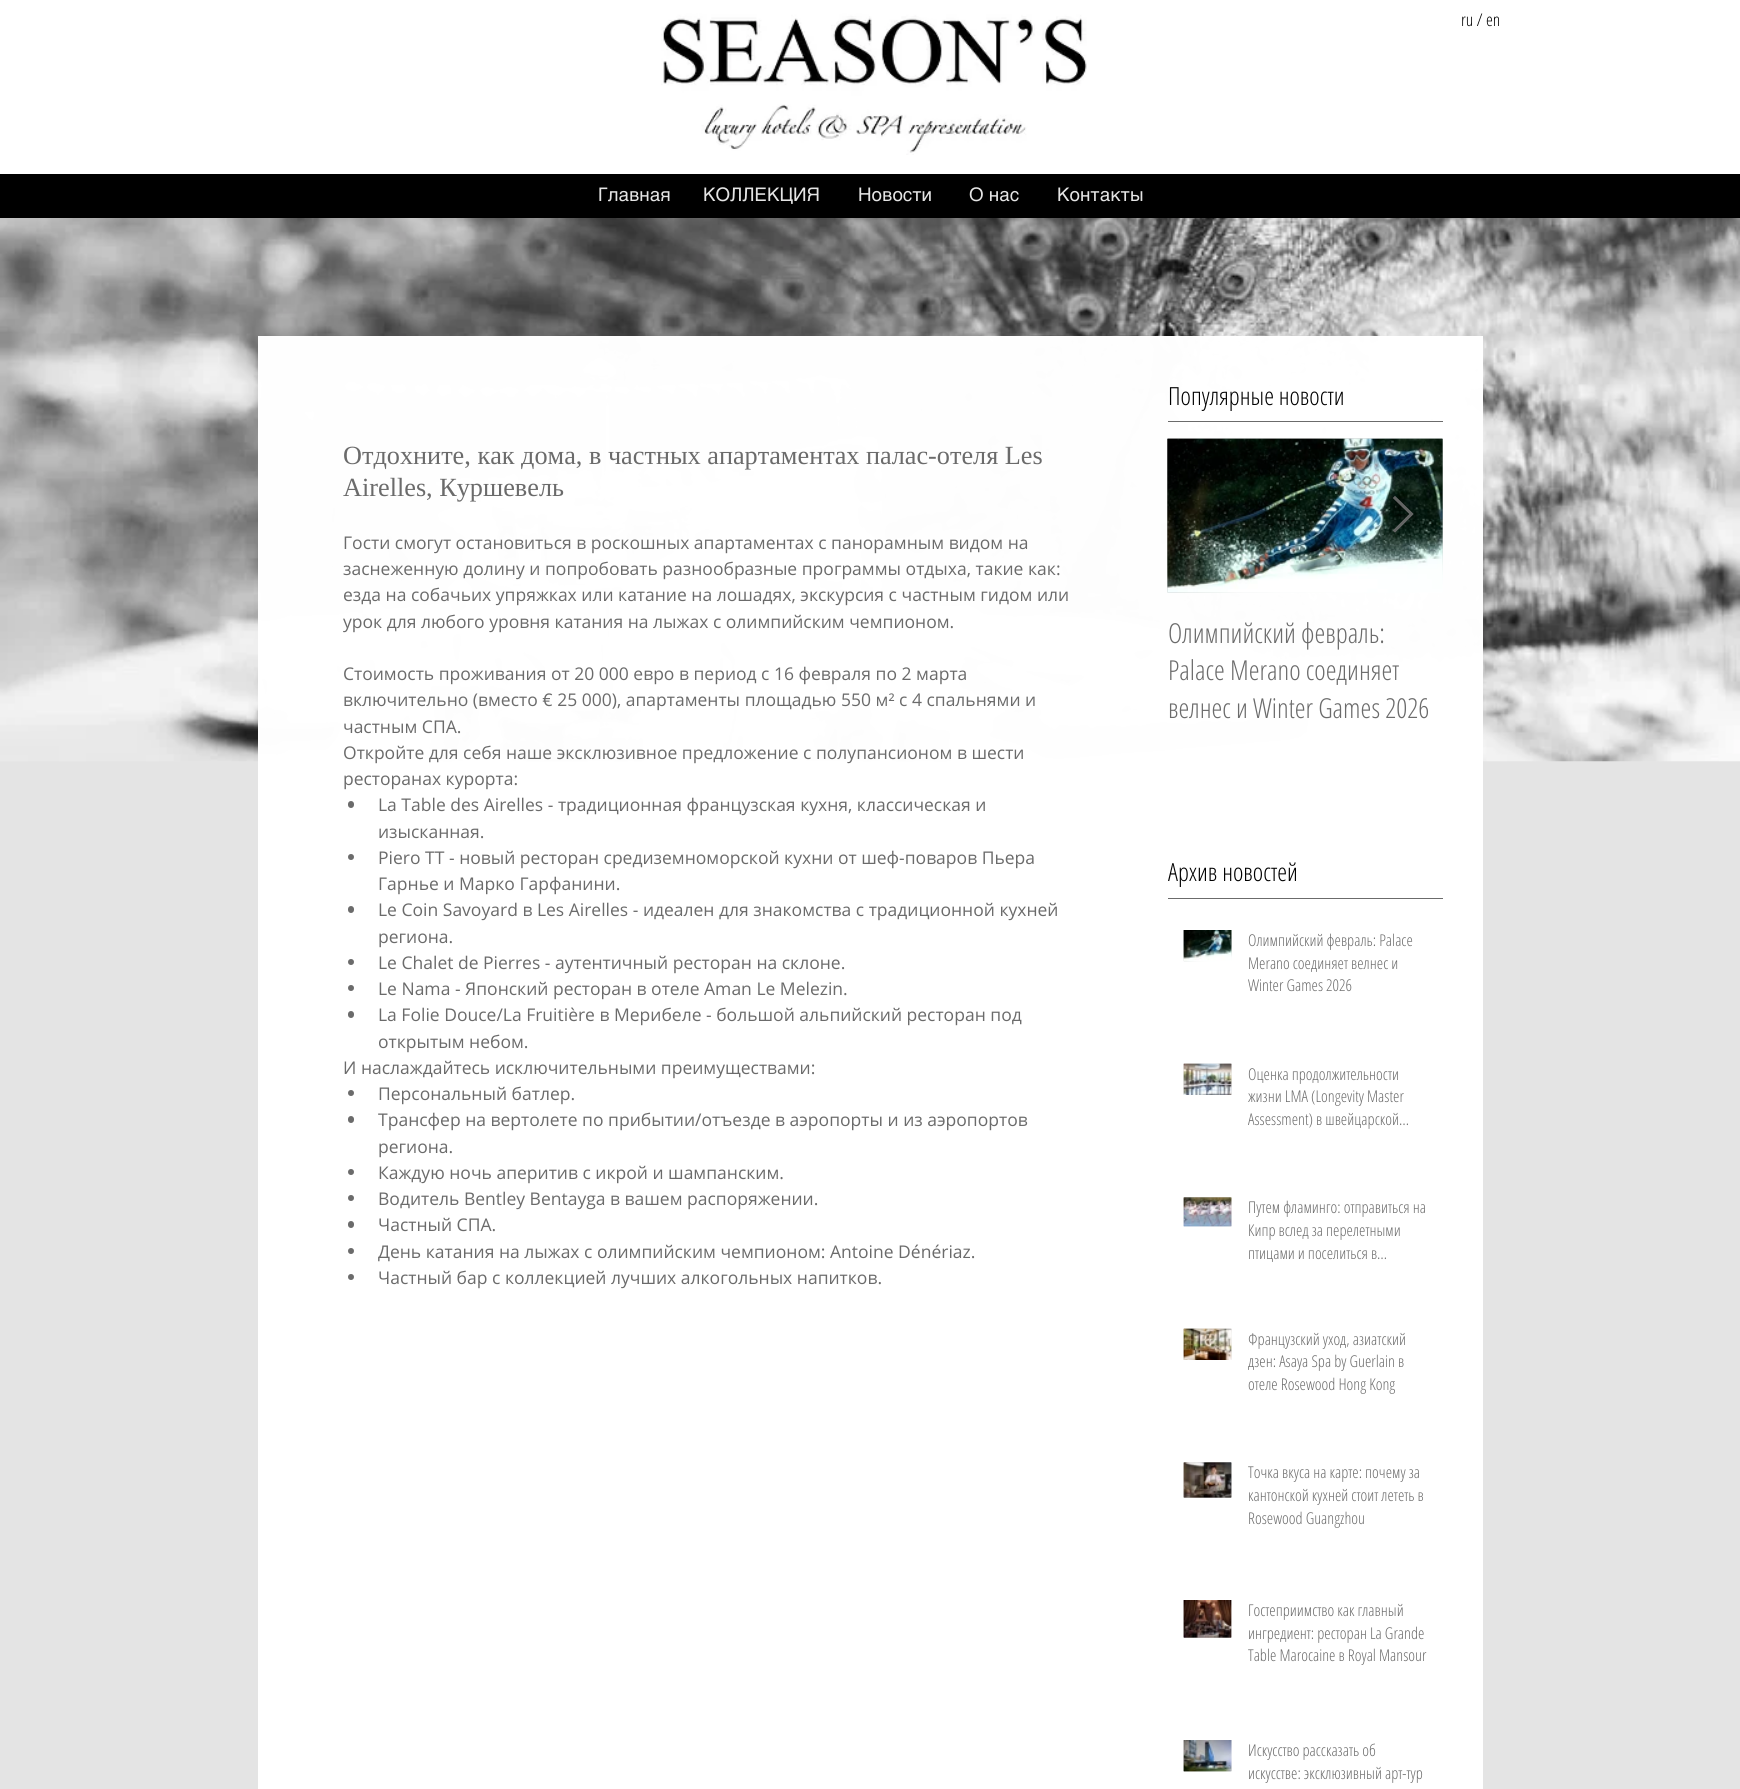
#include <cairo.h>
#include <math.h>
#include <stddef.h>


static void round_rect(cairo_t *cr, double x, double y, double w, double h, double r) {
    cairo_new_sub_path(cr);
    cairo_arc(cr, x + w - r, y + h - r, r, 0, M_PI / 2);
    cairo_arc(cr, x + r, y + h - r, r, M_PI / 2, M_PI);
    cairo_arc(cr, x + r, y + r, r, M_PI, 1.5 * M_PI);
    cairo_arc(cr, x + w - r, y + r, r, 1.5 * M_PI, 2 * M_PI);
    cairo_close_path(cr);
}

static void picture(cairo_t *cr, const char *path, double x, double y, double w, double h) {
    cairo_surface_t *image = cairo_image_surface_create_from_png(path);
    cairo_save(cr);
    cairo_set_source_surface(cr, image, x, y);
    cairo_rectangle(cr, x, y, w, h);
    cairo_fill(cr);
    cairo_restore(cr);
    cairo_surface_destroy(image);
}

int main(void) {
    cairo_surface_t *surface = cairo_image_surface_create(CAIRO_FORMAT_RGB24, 1740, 1789);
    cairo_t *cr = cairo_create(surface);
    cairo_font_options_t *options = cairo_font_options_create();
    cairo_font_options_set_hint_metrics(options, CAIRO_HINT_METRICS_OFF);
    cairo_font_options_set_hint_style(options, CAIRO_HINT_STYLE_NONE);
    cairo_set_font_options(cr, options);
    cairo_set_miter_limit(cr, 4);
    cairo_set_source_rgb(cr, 0.894, 0.894, 0.894);
    cairo_paint(cr);
    cairo_set_source_rgb(cr, 1, 1, 1);
    cairo_rectangle(cr, 0, 0, 1740, 174);
    cairo_fill(cr);
    picture(cr, "img1.png", 661, 0, 426, 155);
    cairo_select_font_face(cr, "Open Sans Condensed Light", CAIRO_FONT_SLANT_NORMAL, CAIRO_FONT_WEIGHT_NORMAL);
    cairo_set_font_size(cr, 17.5);
    cairo_set_source_rgb(cr, 0, 0, 0);
    cairo_move_to(cr, 1461, 26);
    cairo_show_text(cr, "ru / en");
    cairo_rectangle(cr, 0, 174, 1740, 44);
    cairo_fill(cr);
    cairo_select_font_face(cr, "helvetica", CAIRO_FONT_SLANT_NORMAL, CAIRO_FONT_WEIGHT_NORMAL);
    cairo_set_font_size(cr, 18.75);
    cairo_set_source_rgb(cr, 0.894, 0.894, 0.894);
    cairo_move_to(cr, 598, 201);
    cairo_show_text(cr, "Главная");
    cairo_move_to(cr, 703, 201);
    cairo_show_text(cr, "КOЛЛЕКЦИЯ");
    cairo_move_to(cr, 858, 201);
    cairo_show_text(cr, "Новости");
    cairo_move_to(cr, 969, 201);
    cairo_show_text(cr, "О нас");
    cairo_move_to(cr, 1057, 201);
    cairo_show_text(cr, "Контакты");
    picture(cr, "img18.png", 0, 218, 1740, 544);
    cairo_set_source_rgba(cr, 1, 1, 1, 0.99);
    cairo_rectangle(cr, 258, 336, 1225, 1453);
    cairo_fill(cr);
    cairo_select_font_face(cr, "Open Sans Condensed Light", CAIRO_FONT_SLANT_NORMAL, CAIRO_FONT_WEIGHT_NORMAL);
    cairo_set_font_size(cr, 25);
    cairo_set_source_rgb(cr, 0, 0, 0);
    cairo_move_to(cr, 1168, 405);
    cairo_show_text(cr, "Популярные новости");
    cairo_set_source_rgb(cr, 0.42, 0.42, 0.42);
    cairo_rectangle(cr, 1168, 421, 275, 1);
    cairo_fill(cr);
    cairo_select_font_face(cr, "Liberation Serif", CAIRO_FONT_SLANT_NORMAL, CAIRO_FONT_WEIGHT_NORMAL);
    cairo_set_font_size(cr, 26.25);
    cairo_move_to(cr, 343, 464);
    cairo_show_text(cr, "Отдохните, как дома, в частных апартаментах палас-отеля Les");
    cairo_move_to(cr, 343, 496);
    cairo_show_text(cr, "Airelles, Куршевель");
    cairo_select_font_face(cr, "Open Sans", CAIRO_FONT_SLANT_NORMAL, CAIRO_FONT_WEIGHT_NORMAL);
    cairo_set_font_size(cr, 17.5);
    cairo_move_to(cr, 343, 549);
    cairo_show_text(cr, "Гости смогут остановиться в роскошных апартаментах с панорамным видом на");
    cairo_move_to(cr, 343, 575);
    cairo_show_text(cr, "заснеженную долину и попробовать разнообразные программы отдыха, такие как:");
    cairo_move_to(cr, 343, 601);
    cairo_show_text(cr, "езда на собачьих упряжках или катание на лошадях, экскурсия с частным гидом или");
    cairo_move_to(cr, 343, 628);
    cairo_show_text(cr, "урок для любого уровня катания на лыжах с олимпийским чемпионом.");
    cairo_move_to(cr, 343, 680);
    cairo_show_text(cr, "Стоимость проживания от 20 000 евро в период с 16 февраля по 2 марта");
    cairo_move_to(cr, 343, 706);
    cairo_show_text(cr, "включительно (вместо € 25 000), апартаменты площадью 550 м² с 4 спальнями и");
    cairo_move_to(cr, 343, 733);
    cairo_show_text(cr, "частным СПА.");
    cairo_move_to(cr, 343, 759);
    cairo_show_text(cr, "Откройте для себя наше эксклюзивное предложение с полупансионом в шести");
    cairo_move_to(cr, 343, 785);
    cairo_show_text(cr, "ресторанах курорта:");
    round_rect(cr, 348, 801, 6, 7, 3);
    cairo_fill(cr);
    cairo_move_to(cr, 378, 811);
    cairo_show_text(cr, "La Table des Airelles - традиционная французская кухня, классическая и");
    cairo_move_to(cr, 378, 838);
    cairo_show_text(cr, "изысканная.");
    cairo_new_path(cr);
    cairo_arc(cr, 351, 857, 3, 0, 2 * M_PI);
    cairo_fill(cr);
    cairo_move_to(cr, 378, 864);
    cairo_show_text(cr, "Piero TT - новый ресторан средиземноморской кухни от шеф-поваров Пьера");
    cairo_move_to(cr, 378, 890);
    cairo_show_text(cr, "Гарнье и Марко Гарфанини.");
    round_rect(cr, 348, 906, 6, 7, 3);
    cairo_fill(cr);
    cairo_move_to(cr, 378, 916);
    cairo_show_text(cr, "Le Coin Savoyard в Les Airelles - идеален для знакомства с традиционной кухней");
    cairo_move_to(cr, 378, 943);
    cairo_show_text(cr, "региона.");
    cairo_new_path(cr);
    cairo_arc(cr, 351, 962, 3, 0, 2 * M_PI);
    cairo_fill(cr);
    cairo_move_to(cr, 378, 969);
    cairo_show_text(cr, "Le Chalet de Pierres - аутентичный ресторан на склоне.");
    cairo_new_path(cr);
    cairo_arc(cr, 351, 988, 3, 0, 2 * M_PI);
    cairo_fill(cr);
    cairo_move_to(cr, 378, 995);
    cairo_show_text(cr, "Le Nama - Японский ресторан в отеле Aman Le Melezin.");
    round_rect(cr, 348, 1011, 6, 7, 3);
    cairo_fill(cr);
    cairo_move_to(cr, 378, 1021);
    cairo_show_text(cr, "La Folie Douce/La Fruitière в Мерибеле - большой альпийский ресторан под");
    cairo_move_to(cr, 378, 1048);
    cairo_show_text(cr, "открытым небом.");
    cairo_move_to(cr, 343, 1074);
    cairo_show_text(cr, "И наслаждайтесь исключительными преимуществами:");
    cairo_new_path(cr);
    cairo_arc(cr, 351, 1093, 3, 0, 2 * M_PI);
    cairo_fill(cr);
    cairo_move_to(cr, 378, 1100);
    cairo_show_text(cr, "Персональный батлер.");
    round_rect(cr, 348, 1116, 6, 7, 3);
    cairo_fill(cr);
    cairo_move_to(cr, 378, 1126);
    cairo_show_text(cr, "Трансфер на вертолете по прибытии/отъезде в аэропорты и из аэропортов");
    cairo_move_to(cr, 378, 1153);
    cairo_show_text(cr, "региона.");
    cairo_new_path(cr);
    cairo_arc(cr, 351, 1172, 3, 0, 2 * M_PI);
    cairo_fill(cr);
    cairo_move_to(cr, 378, 1179);
    cairo_show_text(cr, "Каждую ночь аперитив с икрой и шампанским.");
    cairo_new_path(cr);
    cairo_arc(cr, 351, 1198, 3, 0, 2 * M_PI);
    cairo_fill(cr);
    cairo_move_to(cr, 378, 1205);
    cairo_show_text(cr, "Водитель Bentley Bentayga в вашем распоряжении.");
    round_rect(cr, 348, 1221, 6, 7, 3);
    cairo_fill(cr);
    cairo_move_to(cr, 378, 1231);
    cairo_show_text(cr, "Частный СПА.");
    cairo_new_path(cr);
    cairo_arc(cr, 351, 1251, 3, 0, 2 * M_PI);
    cairo_fill(cr);
    cairo_move_to(cr, 378, 1258);
    cairo_show_text(cr, "День катания на лыжах с олимпийским чемпионом: Antoine Dénériaz.");
    cairo_new_path(cr);
    cairo_arc(cr, 351, 1277, 3, 0, 2 * M_PI);
    cairo_fill(cr);
    cairo_move_to(cr, 378, 1284);
    cairo_show_text(cr, "Частный бар с коллекцией лучших алкогольных напитков.");
    picture(cr, "img2.png", 1167, 438, 276, 155);
    picture(cr, "img3.png", 1167, 438, 276, 155);
    cairo_set_source_rgba(cr, 0.42, 0.42, 0.42, 0.9);
    cairo_new_path(cr);
    cairo_move_to(cr, 1393.5, 498);
    cairo_line_to(cr, 1395, 496.5);
    cairo_line_to(cr, 1413, 514);
    cairo_line_to(cr, 1395, 532);
    cairo_line_to(cr, 1393.5, 530.5);
    cairo_line_to(cr, 1410, 514);
    cairo_close_path(cr);
    cairo_fill_preserve(cr);
    cairo_set_line_width(cr, 1);
    cairo_stroke(cr);
    cairo_select_font_face(cr, "Open Sans Condensed Light", CAIRO_FONT_SLANT_NORMAL, CAIRO_FONT_WEIGHT_NORMAL);
    cairo_set_font_size(cr, 27.5);
    cairo_set_source_rgb(cr, 0.42, 0.42, 0.42);
    cairo_move_to(cr, 1168, 643);
    cairo_show_text(cr, "Олимпийский февраль:");
    cairo_move_to(cr, 1168, 680);
    cairo_show_text(cr, "Palace Merano соединяет");
    cairo_move_to(cr, 1168, 718);
    cairo_show_text(cr, "велнес и Winter Games 2026");
    cairo_set_font_size(cr, 25);
    cairo_set_source_rgb(cr, 0, 0, 0);
    cairo_move_to(cr, 1168, 881);
    cairo_show_text(cr, "Архив новостей");
    cairo_set_source_rgb(cr, 0.42, 0.42, 0.42);
    cairo_rectangle(cr, 1168, 898, 275, 1);
    cairo_fill(cr);
    picture(cr, "img4.png", 1183, 930, 49, 32);
    picture(cr, "img5.png", 1183, 930, 49, 31);
    cairo_set_font_size(cr, 16.25);
    cairo_move_to(cr, 1248, 946);
    cairo_show_text(cr, "Олимпийский февраль: Palace");
    cairo_move_to(cr, 1248, 969);
    cairo_show_text(cr, "Merano соединяет велнес и");
    cairo_move_to(cr, 1248, 991);
    cairo_show_text(cr, "Winter Games 2026");
    picture(cr, "img6.png", 1183, 1063, 49, 32);
    picture(cr, "img7.png", 1183, 1063, 49, 32);
    cairo_move_to(cr, 1248, 1080);
    cairo_show_text(cr, "Оценка продолжительности");
    cairo_move_to(cr, 1248, 1102);
    cairo_show_text(cr, "жизни LMA (Longevity Master");
    cairo_move_to(cr, 1248, 1125);
    cairo_show_text(cr, "Assessment) в швейцарской…");
    picture(cr, "img8.png", 1183, 1197, 49, 30);
    picture(cr, "img9.png", 1183, 1197, 49, 30);
    cairo_move_to(cr, 1248, 1213);
    cairo_show_text(cr, "Путем фламинго: отправиться на");
    cairo_move_to(cr, 1248, 1236);
    cairo_show_text(cr, "Кипр вслед за перелетными");
    cairo_move_to(cr, 1248, 1259);
    cairo_show_text(cr, "птицами и поселиться в…");
    picture(cr, "img10.png", 1183, 1328, 49, 32);
    picture(cr, "img11.png", 1183, 1328, 49, 32);
    cairo_move_to(cr, 1248, 1345);
    cairo_show_text(cr, "Французский уход, азиатский");
    cairo_save(cr);
    cairo_rectangle(cr, 1248, 1328, 180, 67);
    cairo_clip(cr);
    cairo_move_to(cr, 1248, 1367);
    cairo_show_text(cr, "дзен: Asaya Spa by Guerlain в");
    cairo_restore(cr);
    cairo_move_to(cr, 1248, 1390);
    cairo_show_text(cr, "отеле Rosewood Hong Kong");
    picture(cr, "img12.png", 1183, 1462, 49, 36);
    picture(cr, "img13.png", 1183, 1462, 49, 36);
    cairo_move_to(cr, 1248, 1478);
    cairo_show_text(cr, "Точка вкуса на карте: почему за");
    cairo_move_to(cr, 1248, 1501);
    cairo_show_text(cr, "кантонской кухней стоит лететь в");
    cairo_move_to(cr, 1248, 1524);
    cairo_show_text(cr, "Rosewood Guangzhou");
    picture(cr, "img14.png", 1183, 1600, 49, 38);
    picture(cr, "img15.png", 1183, 1600, 49, 38);
    cairo_move_to(cr, 1248, 1616);
    cairo_show_text(cr, "Гостеприимство как главный");
    cairo_move_to(cr, 1248, 1639);
    cairo_show_text(cr, "ингредиент: ресторан La Grande");
    cairo_move_to(cr, 1248, 1661);
    cairo_show_text(cr, "Table Marocaine в Royal Mansour");
    picture(cr, "img16.png", 1183, 1740, 49, 32);
    picture(cr, "img17.png", 1183, 1740, 49, 32);
    cairo_move_to(cr, 1248, 1756);
    cairo_show_text(cr, "Искусство рассказать об");
    cairo_move_to(cr, 1248, 1779);
    cairo_show_text(cr, "искусстве: эксклюзивный арт-тур");
    cairo_surface_write_to_png(surface, "page.png");
    cairo_font_options_destroy(options);
    cairo_destroy(cr);
    cairo_surface_destroy(surface);
    return 0;
}
